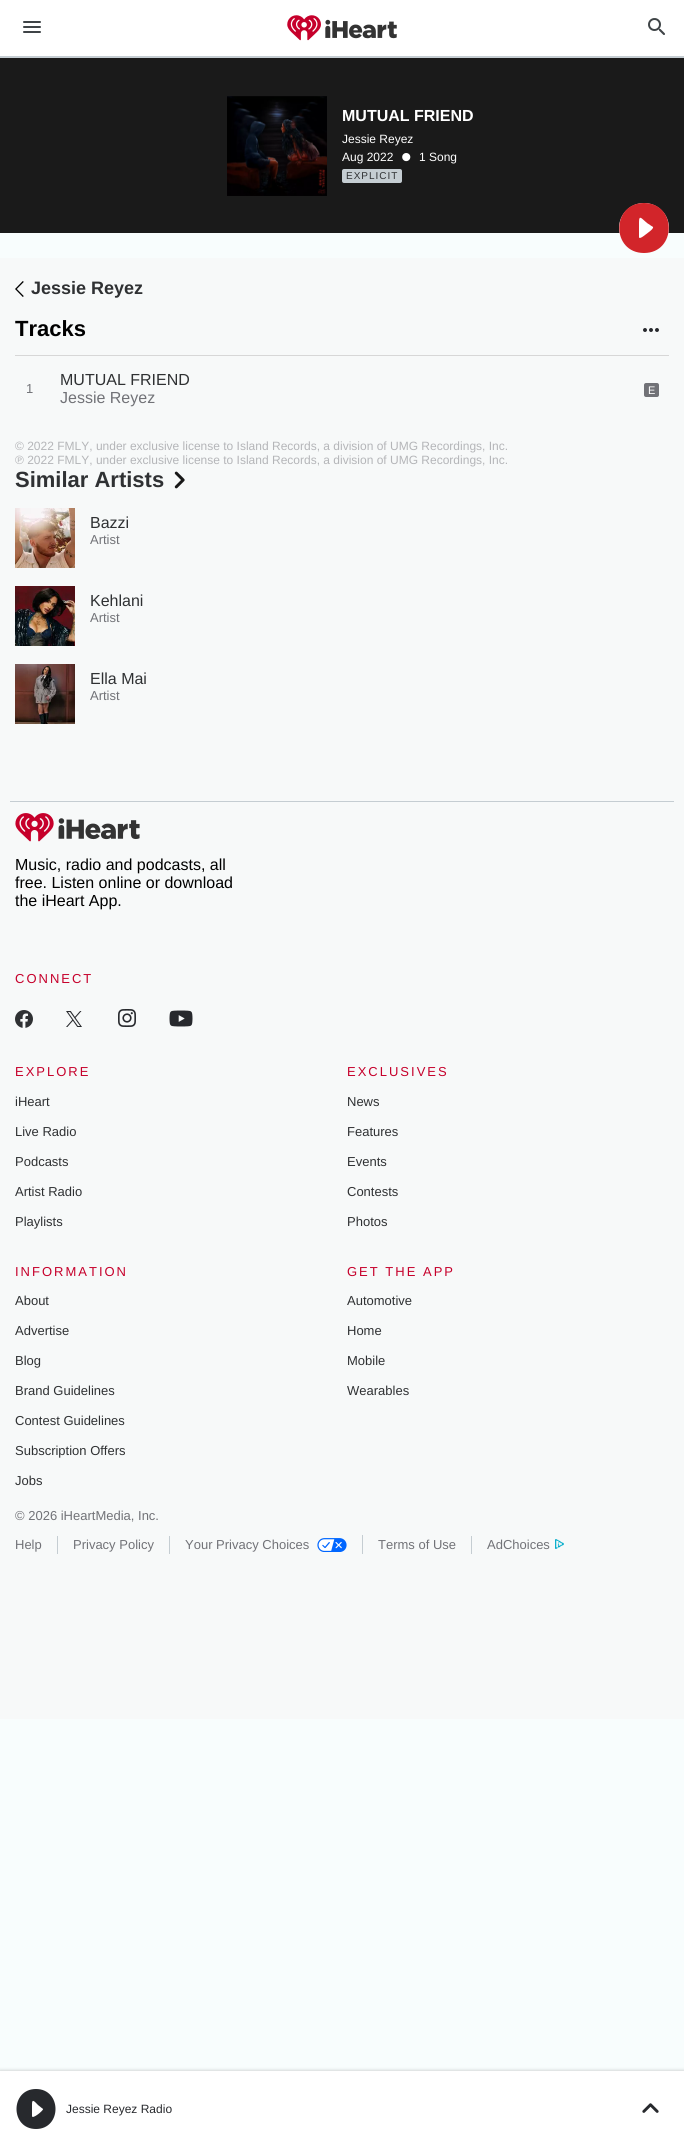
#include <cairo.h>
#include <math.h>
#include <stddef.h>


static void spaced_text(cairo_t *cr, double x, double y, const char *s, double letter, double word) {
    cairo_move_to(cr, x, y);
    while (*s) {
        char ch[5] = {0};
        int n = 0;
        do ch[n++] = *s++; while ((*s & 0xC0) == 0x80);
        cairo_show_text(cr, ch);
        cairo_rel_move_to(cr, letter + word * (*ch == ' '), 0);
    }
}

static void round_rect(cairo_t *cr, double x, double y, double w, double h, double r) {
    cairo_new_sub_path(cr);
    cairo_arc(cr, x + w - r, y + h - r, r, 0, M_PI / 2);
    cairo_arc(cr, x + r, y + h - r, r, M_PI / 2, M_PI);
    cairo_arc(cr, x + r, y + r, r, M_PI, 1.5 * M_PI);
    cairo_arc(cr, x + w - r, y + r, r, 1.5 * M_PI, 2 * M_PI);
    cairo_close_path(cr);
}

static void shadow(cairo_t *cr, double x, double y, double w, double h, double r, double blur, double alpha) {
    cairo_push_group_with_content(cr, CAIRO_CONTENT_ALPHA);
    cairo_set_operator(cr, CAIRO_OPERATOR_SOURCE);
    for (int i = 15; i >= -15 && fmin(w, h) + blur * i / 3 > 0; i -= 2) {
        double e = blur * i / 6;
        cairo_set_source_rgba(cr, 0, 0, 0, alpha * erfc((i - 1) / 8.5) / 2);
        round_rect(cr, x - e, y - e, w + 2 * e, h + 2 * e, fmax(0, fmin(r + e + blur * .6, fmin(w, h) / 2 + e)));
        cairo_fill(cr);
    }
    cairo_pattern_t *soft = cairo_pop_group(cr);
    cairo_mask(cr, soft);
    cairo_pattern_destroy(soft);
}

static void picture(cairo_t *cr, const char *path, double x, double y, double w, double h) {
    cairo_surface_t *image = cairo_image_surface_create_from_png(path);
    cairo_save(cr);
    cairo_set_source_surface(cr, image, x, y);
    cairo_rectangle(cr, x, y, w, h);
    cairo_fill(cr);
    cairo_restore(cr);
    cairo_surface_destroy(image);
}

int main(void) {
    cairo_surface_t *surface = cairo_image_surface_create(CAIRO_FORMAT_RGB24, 684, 2146);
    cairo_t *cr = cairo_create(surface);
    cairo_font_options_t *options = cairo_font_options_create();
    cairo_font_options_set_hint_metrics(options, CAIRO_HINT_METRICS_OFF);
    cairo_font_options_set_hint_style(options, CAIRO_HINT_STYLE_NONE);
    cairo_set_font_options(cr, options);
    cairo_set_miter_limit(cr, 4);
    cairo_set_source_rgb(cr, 0.969, 0.992, 0.992);
    cairo_paint(cr);
    cairo_set_source_rgb(cr, 1, 1, 1);
    cairo_rectangle(cr, 0, 0, 684, 56);
    cairo_fill(cr);
    cairo_set_source_rgb(cr, 0.773, 0.804, 0.824);
    cairo_rectangle(cr, 0, 56, 684, 2);
    cairo_fill(cr);
    picture(cr, "img1.png", 23, 21, 18, 12);
    picture(cr, "img2.png", 287, 15, 110, 26);
    picture(cr, "img3.png", 648, 18, 17, 17);
    cairo_set_source_rgb(cr, 0.102, 0.102, 0.102);
    cairo_rectangle(cr, 0, 58, 684, 175);
    cairo_fill(cr);
    picture(cr, "img4.png", 227, 96, 100, 100);
    cairo_select_font_face(cr, "Liberation Sans", CAIRO_FONT_SLANT_NORMAL, CAIRO_FONT_WEIGHT_BOLD);
    cairo_set_font_size(cr, 16);
    cairo_set_source_rgb(cr, 1, 1, 1);
    cairo_move_to(cr, 342, 121);
    cairo_show_text(cr, "MUTUAL FRIEND");
    cairo_select_font_face(cr, "Liberation Sans", CAIRO_FONT_SLANT_NORMAL, CAIRO_FONT_WEIGHT_NORMAL);
    cairo_set_font_size(cr, 12);
    cairo_move_to(cr, 342, 143);
    cairo_show_text(cr, "Jessie Reyez");
    cairo_move_to(cr, 342, 161);
    cairo_show_text(cr, "Aug 2022");
    cairo_set_font_size(cr, 30);
    cairo_move_to(cr, 401, 167);
    cairo_show_text(cr, "•");
    cairo_set_font_size(cr, 12);
    cairo_move_to(cr, 419, 161);
    cairo_show_text(cr, "1 Song");
    cairo_set_source_rgb(cr, 0.773, 0.804, 0.824);
    round_rect(cr, 342, 169, 60, 14, 2);
    cairo_fill(cr);
    cairo_set_font_size(cr, 10);
    cairo_set_source_rgb(cr, 0.184, 0.192, 0.2);
    spaced_text(cr, 346, 179, "EXPLICIT", 1, 0);
    cairo_set_source_rgb(cr, 1, 1, 1);
    cairo_new_path(cr);
    cairo_arc(cr, 644, 228, 25, 0, 2 * M_PI);
    cairo_fill(cr);
    cairo_set_source_rgb(cr, 0.824, 0.145, 0.165);
    cairo_new_path(cr);
    cairo_move_to(cr, 644, 203);
    cairo_curve_to(cr, 611, 203, 611, 253, 644, 253);
    cairo_curve_to(cr, 677, 253, 677, 203, 644, 203);
    cairo_close_path(cr);
    cairo_move_to(cr, 639, 237);
    cairo_line_to(cr, 639, 222);
    cairo_curve_to(cr, 639, 214, 642, 219, 647, 223);
    cairo_line_to(cr, 653, 227);
    cairo_curve_to(cr, 654, 229, 646, 234, 645, 235);
    cairo_curve_to(cr, 645, 235, 639, 240, 639, 237);
    cairo_close_path(cr);
    cairo_fill(cr);
    cairo_set_source_rgb(cr, 0.965, 0.973, 0.976);
    cairo_rectangle(cr, 0, 258, 684, 1461);
    cairo_fill(cr);
    picture(cr, "img5.png", 15, 281, 9, 16);
    cairo_select_font_face(cr, "Liberation Sans", CAIRO_FONT_SLANT_NORMAL, CAIRO_FONT_WEIGHT_BOLD);
    cairo_set_font_size(cr, 18);
    cairo_set_source_rgb(cr, 0.184, 0.192, 0.2);
    cairo_move_to(cr, 31, 294);
    cairo_show_text(cr, "Jessie Reyez");
    cairo_set_source_rgb(cr, 0.843, 0.843, 0.843);
    cairo_rectangle(cr, 15, 355, 654, 1);
    cairo_fill(cr);
    cairo_set_font_size(cr, 22);
    cairo_set_source_rgb(cr, 0, 0, 0);
    cairo_move_to(cr, 15, 336);
    cairo_show_text(cr, "Tracks");
    picture(cr, "img6.png", 643, 328, 16, 4);
    cairo_select_font_face(cr, "Liberation Sans", CAIRO_FONT_SLANT_NORMAL, CAIRO_FONT_WEIGHT_NORMAL);
    cairo_set_font_size(cr, 13);
    cairo_set_source_rgb(cr, 0.443, 0.447, 0.467);
    cairo_move_to(cr, 26, 393);
    cairo_show_text(cr, "1");
    cairo_set_font_size(cr, 16);
    cairo_set_source_rgb(cr, 0.184, 0.192, 0.2);
    cairo_move_to(cr, 60, 385);
    cairo_show_text(cr, "MUTUAL FRIEND");
    cairo_set_source_rgb(cr, 0.443, 0.447, 0.467);
    cairo_move_to(cr, 60, 403);
    cairo_show_text(cr, "Jessie Reyez");
    round_rect(cr, 644, 383, 15, 14, 2);
    cairo_fill(cr);
    cairo_set_font_size(cr, 11);
    cairo_set_source_rgb(cr, 1, 1, 1);
    cairo_move_to(cr, 648, 394);
    cairo_show_text(cr, "E");
    cairo_set_font_size(cr, 12);
    cairo_set_source_rgb(cr, 0.706, 0.71, 0.722);
    cairo_move_to(cr, 15, 450);
    cairo_show_text(cr, "© 2022 FMLY, under exclusive license to Island Records, a division of UMG Recordings, Inc.");
    cairo_move_to(cr, 15, 464);
    cairo_show_text(cr, "℗ 2022 FMLY, under exclusive license to Island Records, a division of UMG Recordings, Inc.");
    cairo_select_font_face(cr, "Liberation Sans", CAIRO_FONT_SLANT_NORMAL, CAIRO_FONT_WEIGHT_BOLD);
    cairo_set_font_size(cr, 22);
    cairo_set_source_rgb(cr, 0.184, 0.192, 0.2);
    cairo_move_to(cr, 15, 487);
    cairo_show_text(cr, "Similar Artists");
    picture(cr, "img7.png", 174, 471, 11, 18);
    picture(cr, "img8.png", 15, 508, 60, 60);
    cairo_select_font_face(cr, "Liberation Sans", CAIRO_FONT_SLANT_NORMAL, CAIRO_FONT_WEIGHT_NORMAL);
    cairo_set_font_size(cr, 16);
    cairo_move_to(cr, 90, 528);
    cairo_show_text(cr, "Bazzi");
    cairo_set_font_size(cr, 13);
    cairo_set_source_rgb(cr, 0.443, 0.447, 0.467);
    cairo_move_to(cr, 90, 544);
    cairo_show_text(cr, "Artist");
    picture(cr, "img9.png", 15, 586, 60, 60);
    cairo_set_font_size(cr, 16);
    cairo_set_source_rgb(cr, 0.184, 0.192, 0.2);
    cairo_move_to(cr, 90, 606);
    cairo_show_text(cr, "Kehlani");
    cairo_set_font_size(cr, 13);
    cairo_set_source_rgb(cr, 0.443, 0.447, 0.467);
    cairo_move_to(cr, 90, 622);
    cairo_show_text(cr, "Artist");
    picture(cr, "img10.png", 15, 664, 60, 60);
    cairo_set_font_size(cr, 16);
    cairo_set_source_rgb(cr, 0.184, 0.192, 0.2);
    cairo_move_to(cr, 90, 684);
    cairo_show_text(cr, "Ella Mai");
    cairo_set_font_size(cr, 13);
    cairo_set_source_rgb(cr, 0.443, 0.447, 0.467);
    cairo_move_to(cr, 90, 700);
    cairo_show_text(cr, "Artist");
    cairo_set_source_rgb(cr, 0.773, 0.804, 0.824);
    cairo_rectangle(cr, 10, 801, 664, 1);
    cairo_fill(cr);
    picture(cr, "img11.png", 15, 813, 125, 29);
    cairo_set_font_size(cr, 16);
    cairo_set_source_rgb(cr, 0, 0, 0);
    cairo_move_to(cr, 15, 870);
    cairo_show_text(cr, "Music, radio and podcasts, all");
    cairo_move_to(cr, 15, 888);
    cairo_show_text(cr, "free. Listen online or download");
    cairo_move_to(cr, 15, 906);
    cairo_show_text(cr, "the iHeart App.");
    cairo_set_font_size(cr, 13);
    cairo_set_source_rgb(cr, 0.776, 0, 0.169);
    spaced_text(cr, 15, 983, "CONNECT", 2, 0);
    picture(cr, "img12.png", 15, 1010, 18, 18);
    picture(cr, "img13.png", 66, 1011, 16, 16);
    picture(cr, "img14.png", 118, 1009, 18, 18);
    picture(cr, "img15.png", 169, 1010, 24, 17);
    spaced_text(cr, 15, 1076, "EXPLORE", 2, 0);
    cairo_set_source_rgb(cr, 0.184, 0.192, 0.2);
    cairo_move_to(cr, 15, 1106);
    cairo_show_text(cr, "iHeart");
    cairo_move_to(cr, 15, 1136);
    cairo_show_text(cr, "Live Radio");
    cairo_move_to(cr, 15, 1166);
    cairo_show_text(cr, "Podcasts");
    cairo_move_to(cr, 15, 1196);
    cairo_show_text(cr, "Artist Radio");
    cairo_move_to(cr, 15, 1226);
    cairo_show_text(cr, "Playlists");
    cairo_set_source_rgb(cr, 0.776, 0, 0.169);
    spaced_text(cr, 347, 1076, "EXCLUSIVES", 2, 0);
    cairo_set_source_rgb(cr, 0.184, 0.192, 0.2);
    cairo_move_to(cr, 347, 1106);
    cairo_show_text(cr, "News");
    cairo_move_to(cr, 347, 1136);
    cairo_show_text(cr, "Features");
    cairo_move_to(cr, 347, 1166);
    cairo_show_text(cr, "Events");
    cairo_move_to(cr, 347, 1196);
    cairo_show_text(cr, "Contests");
    cairo_move_to(cr, 347, 1226);
    cairo_show_text(cr, "Photos");
    cairo_set_source_rgb(cr, 0.776, 0, 0.169);
    spaced_text(cr, 15, 1276, "INFORMATION", 2, 0);
    cairo_set_source_rgb(cr, 0.184, 0.192, 0.2);
    cairo_move_to(cr, 15, 1305);
    cairo_show_text(cr, "About");
    cairo_move_to(cr, 15, 1335);
    cairo_show_text(cr, "Advertise");
    cairo_move_to(cr, 15, 1365);
    cairo_show_text(cr, "Blog");
    cairo_move_to(cr, 15, 1395);
    cairo_show_text(cr, "Brand Guidelines");
    cairo_move_to(cr, 15, 1425);
    cairo_show_text(cr, "Contest Guidelines");
    cairo_move_to(cr, 15, 1455);
    cairo_show_text(cr, "Subscription Offers");
    cairo_move_to(cr, 15, 1485);
    cairo_show_text(cr, "Jobs");
    cairo_set_source_rgb(cr, 0.776, 0, 0.169);
    spaced_text(cr, 347, 1276, "GET THE APP", 2, 0);
    cairo_set_source_rgb(cr, 0.184, 0.192, 0.2);
    cairo_move_to(cr, 347, 1305);
    cairo_show_text(cr, "Automotive");
    cairo_move_to(cr, 347, 1335);
    cairo_show_text(cr, "Home");
    cairo_move_to(cr, 347, 1365);
    cairo_show_text(cr, "Mobile");
    cairo_move_to(cr, 347, 1395);
    cairo_show_text(cr, "Wearables");
    cairo_set_source_rgb(cr, 0.443, 0.447, 0.467);
    cairo_move_to(cr, 15, 1520);
    cairo_show_text(cr, "© 2026 iHeartMedia, Inc.");
    cairo_set_source_rgb(cr, 0.773, 0.804, 0.824);
    cairo_rectangle(cr, 57, 1536, 1, 18);
    cairo_fill(cr);
    cairo_set_source_rgb(cr, 0.443, 0.447, 0.467);
    cairo_move_to(cr, 15, 1549);
    cairo_show_text(cr, "Help");
    cairo_set_source_rgb(cr, 0.773, 0.804, 0.824);
    cairo_rectangle(cr, 169, 1536, 1, 18);
    cairo_fill(cr);
    cairo_set_source_rgb(cr, 0.443, 0.447, 0.467);
    cairo_move_to(cr, 73, 1549);
    cairo_show_text(cr, "Privacy Policy");
    cairo_set_source_rgb(cr, 0.773, 0.804, 0.824);
    cairo_rectangle(cr, 362, 1535, 1, 19);
    cairo_fill(cr);
    cairo_set_source_rgb(cr, 0.443, 0.447, 0.467);
    cairo_move_to(cr, 185, 1549);
    cairo_show_text(cr, "Your Privacy Choices");
    picture(cr, "img16.png", 317, 1538, 30, 14);
    cairo_set_source_rgb(cr, 0.773, 0.804, 0.824);
    cairo_rectangle(cr, 471, 1536, 1, 18);
    cairo_fill(cr);
    cairo_set_source_rgb(cr, 0.443, 0.447, 0.467);
    cairo_move_to(cr, 378, 1549);
    cairo_show_text(cr, "Terms of Use");
    cairo_move_to(cr, 487, 1549);
    cairo_show_text(cr, "AdChoices");
    picture(cr, "img17.png", 555, 1539, 9, 10);
    cairo_set_source_rgb(cr, 0, 0, 0);
    shadow(cr, 0, 2070, 684, 75, 0, 1.5, 0.15);
    cairo_set_source_rgb(cr, 1, 1, 1);
    cairo_rectangle(cr, 0, 2071, 684, 75);
    cairo_fill(cr);
    cairo_set_source_rgb(cr, 0.153, 0.161, 0.176);
    cairo_new_path(cr);
    cairo_move_to(cr, 36, 2089);
    cairo_curve_to(cr, 10, 2089, 10, 2129, 36, 2129);
    cairo_curve_to(cr, 62, 2129, 62, 2089, 36, 2089);
    cairo_close_path(cr);
    cairo_move_to(cr, 32, 2116);
    cairo_line_to(cr, 32, 2104);
    cairo_curve_to(cr, 32, 2098, 35, 2102, 38, 2105);
    cairo_line_to(cr, 43, 2109);
    cairo_curve_to(cr, 44, 2110, 32, 2120, 32, 2116);
    cairo_close_path(cr);
    cairo_fill(cr);
    cairo_set_font_size(cr, 12);
    cairo_move_to(cr, 66, 2113);
    cairo_show_text(cr, "Jessie Reyez Radio");
    picture(cr, "img18.png", 642, 2103, 17, 10);
    cairo_surface_write_to_png(surface, "page.png");
    cairo_font_options_destroy(options);
    cairo_destroy(cr);
    cairo_surface_destroy(surface);
    return 0;
}
